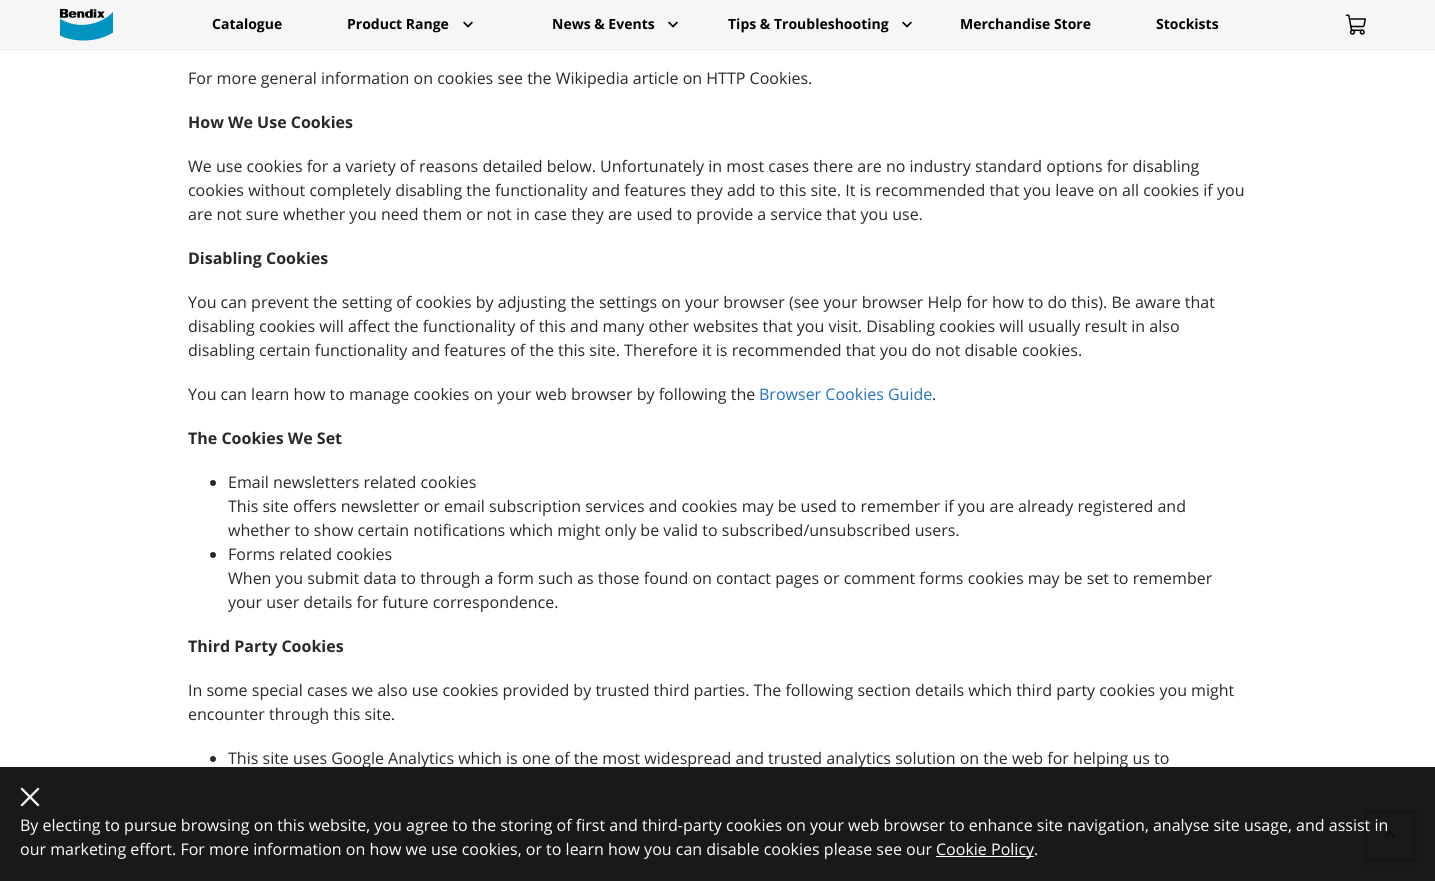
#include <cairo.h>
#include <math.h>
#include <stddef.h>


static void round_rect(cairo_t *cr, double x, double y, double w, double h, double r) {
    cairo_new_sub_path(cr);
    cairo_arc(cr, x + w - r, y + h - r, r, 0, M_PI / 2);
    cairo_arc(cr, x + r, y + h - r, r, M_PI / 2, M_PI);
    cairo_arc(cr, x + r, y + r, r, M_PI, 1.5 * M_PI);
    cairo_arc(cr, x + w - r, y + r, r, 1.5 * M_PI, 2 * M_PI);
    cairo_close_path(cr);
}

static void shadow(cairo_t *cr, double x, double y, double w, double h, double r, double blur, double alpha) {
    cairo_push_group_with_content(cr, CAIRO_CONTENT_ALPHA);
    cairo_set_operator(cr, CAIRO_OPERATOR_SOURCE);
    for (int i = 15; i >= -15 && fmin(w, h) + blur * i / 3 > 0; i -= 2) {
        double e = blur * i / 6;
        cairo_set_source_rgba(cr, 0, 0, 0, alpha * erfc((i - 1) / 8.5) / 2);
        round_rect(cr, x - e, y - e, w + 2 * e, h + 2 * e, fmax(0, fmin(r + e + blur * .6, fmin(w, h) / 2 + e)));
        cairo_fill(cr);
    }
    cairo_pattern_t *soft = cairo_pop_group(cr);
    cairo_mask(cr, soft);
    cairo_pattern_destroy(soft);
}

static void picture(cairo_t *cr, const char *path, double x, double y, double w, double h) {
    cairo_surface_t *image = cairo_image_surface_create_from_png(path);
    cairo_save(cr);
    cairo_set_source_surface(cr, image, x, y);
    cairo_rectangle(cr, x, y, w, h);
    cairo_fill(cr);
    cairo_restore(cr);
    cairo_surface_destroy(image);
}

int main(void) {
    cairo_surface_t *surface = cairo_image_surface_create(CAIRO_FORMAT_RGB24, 1435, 881);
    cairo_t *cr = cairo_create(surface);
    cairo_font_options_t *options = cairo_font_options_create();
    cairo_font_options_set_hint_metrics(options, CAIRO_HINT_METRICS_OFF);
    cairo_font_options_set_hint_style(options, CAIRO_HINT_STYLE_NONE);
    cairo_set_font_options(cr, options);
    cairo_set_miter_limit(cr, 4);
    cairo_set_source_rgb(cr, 1, 1, 1);
    cairo_paint(cr);
    cairo_set_source_rgb(cr, 0.961, 0.961, 0.961);
    cairo_rectangle(cr, 0, 0, 1435, 49);
    cairo_fill(cr);
    cairo_set_source_rgb(cr, 0.918, 0.918, 0.918);
    cairo_rectangle(cr, 0, 49, 1435, 1);
    cairo_fill(cr);
    picture(cr, "img1.png", 60, 8, 53, 33);
    cairo_select_font_face(cr, "Open Sans", CAIRO_FONT_SLANT_NORMAL, CAIRO_FONT_WEIGHT_BOLD);
    cairo_set_font_size(cr, 14);
    cairo_set_source_rgb(cr, 0, 0, 0);
    cairo_move_to(cr, 212, 29);
    cairo_show_text(cr, "Catalogue");
    cairo_move_to(cr, 347, 29);
    cairo_show_text(cr, "Product Range");
    picture(cr, "img2.png", 463, 21, 10, 7);
    cairo_move_to(cr, 552, 29);
    cairo_show_text(cr, "News & Events");
    picture(cr, "img2.png", 668, 21, 10, 7);
    cairo_move_to(cr, 728, 29);
    cairo_show_text(cr, "Tips & Troubleshooting");
    picture(cr, "img2.png", 902, 21, 10, 7);
    cairo_move_to(cr, 960, 29);
    cairo_show_text(cr, "Merchandise Store");
    cairo_move_to(cr, 1156, 29);
    cairo_show_text(cr, "Stockists");
    picture(cr, "img3.png", 1345, 14, 21, 21);
    cairo_select_font_face(cr, "Open Sans", CAIRO_FONT_SLANT_NORMAL, CAIRO_FONT_WEIGHT_NORMAL);
    cairo_set_font_size(cr, 16);
    cairo_set_source_rgb(cr, 0.161, 0.161, 0.161);
    cairo_move_to(cr, 188, 84);
    cairo_show_text(cr, "For more general information on cookies see the Wikipedia article on HTTP Cookies.");
    cairo_select_font_face(cr, "Open Sans", CAIRO_FONT_SLANT_NORMAL, CAIRO_FONT_WEIGHT_BOLD);
    cairo_move_to(cr, 188, 128);
    cairo_show_text(cr, "How We Use Cookies");
    cairo_select_font_face(cr, "Open Sans", CAIRO_FONT_SLANT_NORMAL, CAIRO_FONT_WEIGHT_NORMAL);
    cairo_move_to(cr, 188, 172);
    cairo_show_text(cr, "We use cookies for a variety of reasons detailed below. Unfortunately in most cases there are no industry standard options for disabling");
    cairo_move_to(cr, 188, 196);
    cairo_show_text(cr, "cookies without completely disabling the functionality and features they add to this site. It is recommended that you leave on all cookies if you");
    cairo_move_to(cr, 188, 220);
    cairo_show_text(cr, "are not sure whether you need them or not in case they are used to provide a service that you use.");
    cairo_select_font_face(cr, "Open Sans", CAIRO_FONT_SLANT_NORMAL, CAIRO_FONT_WEIGHT_BOLD);
    cairo_move_to(cr, 188, 264);
    cairo_show_text(cr, "Disabling Cookies");
    cairo_select_font_face(cr, "Open Sans", CAIRO_FONT_SLANT_NORMAL, CAIRO_FONT_WEIGHT_NORMAL);
    cairo_move_to(cr, 188, 308);
    cairo_show_text(cr, "You can prevent the setting of cookies by adjusting the settings on your browser (see your browser Help for how to do this). Be aware that");
    cairo_move_to(cr, 188, 332);
    cairo_show_text(cr, "disabling cookies will affect the functionality of this and many other websites that you visit. Disabling cookies will usually result in also");
    cairo_move_to(cr, 188, 356);
    cairo_show_text(cr, "disabling certain functionality and features of the this site. Therefore it is recommended that you do not disable cookies.");
    cairo_move_to(cr, 188, 400);
    cairo_show_text(cr, "You can learn how to manage cookies on your web browser by following the");
    cairo_set_source_rgb(cr, 0.145, 0.447, 0.769);
    cairo_move_to(cr, 759, 400);
    cairo_show_text(cr, "Browser Cookies Guide");
    cairo_set_source_rgb(cr, 0.161, 0.161, 0.161);
    cairo_move_to(cr, 932, 400);
    cairo_show_text(cr, ".");
    cairo_select_font_face(cr, "Open Sans", CAIRO_FONT_SLANT_NORMAL, CAIRO_FONT_WEIGHT_BOLD);
    cairo_move_to(cr, 188, 444);
    cairo_show_text(cr, "The Cookies We Set");
    cairo_new_path(cr);
    cairo_arc(cr, 213, 483, 3, 0, 2 * M_PI);
    cairo_fill(cr);
    cairo_select_font_face(cr, "Open Sans", CAIRO_FONT_SLANT_NORMAL, CAIRO_FONT_WEIGHT_NORMAL);
    cairo_move_to(cr, 228, 488);
    cairo_show_text(cr, "Email newsletters related cookies");
    cairo_move_to(cr, 228, 512);
    cairo_show_text(cr, "This site offers newsletter or email subscription services and cookies may be used to remember if you are already registered and");
    cairo_move_to(cr, 228, 536);
    cairo_show_text(cr, "whether to show certain notifications which might only be valid to subscribed/unsubscribed users.");
    cairo_new_path(cr);
    cairo_arc(cr, 213, 555, 3, 0, 2 * M_PI);
    cairo_fill(cr);
    cairo_move_to(cr, 228, 560);
    cairo_show_text(cr, "Forms related cookies");
    cairo_move_to(cr, 228, 584);
    cairo_show_text(cr, "When you submit data to through a form such as those found on contact pages or comment forms cookies may be set to remember");
    cairo_move_to(cr, 228, 608);
    cairo_show_text(cr, "your user details for future correspondence.");
    cairo_select_font_face(cr, "Open Sans", CAIRO_FONT_SLANT_NORMAL, CAIRO_FONT_WEIGHT_BOLD);
    cairo_move_to(cr, 188, 652);
    cairo_show_text(cr, "Third Party Cookies");
    cairo_select_font_face(cr, "Open Sans", CAIRO_FONT_SLANT_NORMAL, CAIRO_FONT_WEIGHT_NORMAL);
    cairo_move_to(cr, 188, 696);
    cairo_show_text(cr, "In some special cases we also use cookies provided by trusted third parties. The following section details which third party cookies you might");
    cairo_move_to(cr, 188, 720);
    cairo_show_text(cr, "encounter through this site.");
    cairo_new_path(cr);
    cairo_arc(cr, 213, 759, 3, 0, 2 * M_PI);
    cairo_fill(cr);
    cairo_move_to(cr, 228, 764);
    cairo_show_text(cr, "This site uses Google Analytics which is one of the most widespread and trusted analytics solution on the web for helping us to");
    cairo_save(cr);
    cairo_set_fill_rule(cr, CAIRO_FILL_RULE_EVEN_ODD);
    cairo_new_path(cr);
    cairo_move_to(cr, 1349, 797);
    cairo_line_to(cr, 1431, 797);
    cairo_line_to(cr, 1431, 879);
    cairo_line_to(cr, 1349, 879);
    cairo_close_path(cr);
    cairo_move_to(cr, 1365, 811);
    cairo_line_to(cr, 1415, 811);
    cairo_line_to(cr, 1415, 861);
    cairo_line_to(cr, 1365, 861);
    cairo_close_path(cr);
    cairo_clip(cr);
    cairo_set_source_rgb(cr, 0, 0, 0);
    shadow(cr, 1365, 813, 50, 50, 0, 5, 0.1);
    cairo_restore(cr);
    cairo_rectangle(cr, 1366, 812, 48, 48);
    cairo_set_source_rgb(cr, 0.769, 0.769, 0.769);
    cairo_stroke(cr);
    cairo_set_source_rgb(cr, 0.514, 0.502, 0.502);
    cairo_new_path(cr);
    cairo_move_to(cr, 1384.5, 836);
    cairo_line_to(cr, 1390, 830.5);
    cairo_line_to(cr, 1391.5, 832);
    cairo_line_to(cr, 1386, 837.5);
    cairo_close_path(cr);
    cairo_fill(cr);
    cairo_new_path(cr);
    cairo_move_to(cr, 1388.5, 832);
    cairo_line_to(cr, 1390, 830.5);
    cairo_line_to(cr, 1395.5, 836);
    cairo_line_to(cr, 1394, 837.5);
    cairo_close_path(cr);
    cairo_fill(cr);
    cairo_set_source_rgba(cr, 0, 0, 0, 0.9);
    cairo_rectangle(cr, 0, 767, 1435, 114);
    cairo_fill(cr);
    picture(cr, "img4.png", 20, 787, 20, 20);
    cairo_set_source_rgb(cr, 1, 1, 1);
    cairo_move_to(cr, 20, 831);
    cairo_show_text(cr, "By electing to pursue browsing on this website, you agree to the storing of first and third-party cookies on your web browser to enhance site navigation, analyse site usage, and assist in");
    cairo_move_to(cr, 20, 855);
    cairo_show_text(cr, "our marketing effort. For more information on how we use cookies, or to learn how you can disable cookies please see our");
    cairo_rectangle(cr, 936, 856, 98, 1);
    cairo_fill(cr);
    cairo_move_to(cr, 936, 855);
    cairo_show_text(cr, "Cookie Policy.");
    cairo_surface_write_to_png(surface, "page.png");
    cairo_font_options_destroy(options);
    cairo_destroy(cr);
    cairo_surface_destroy(surface);
    return 0;
}
